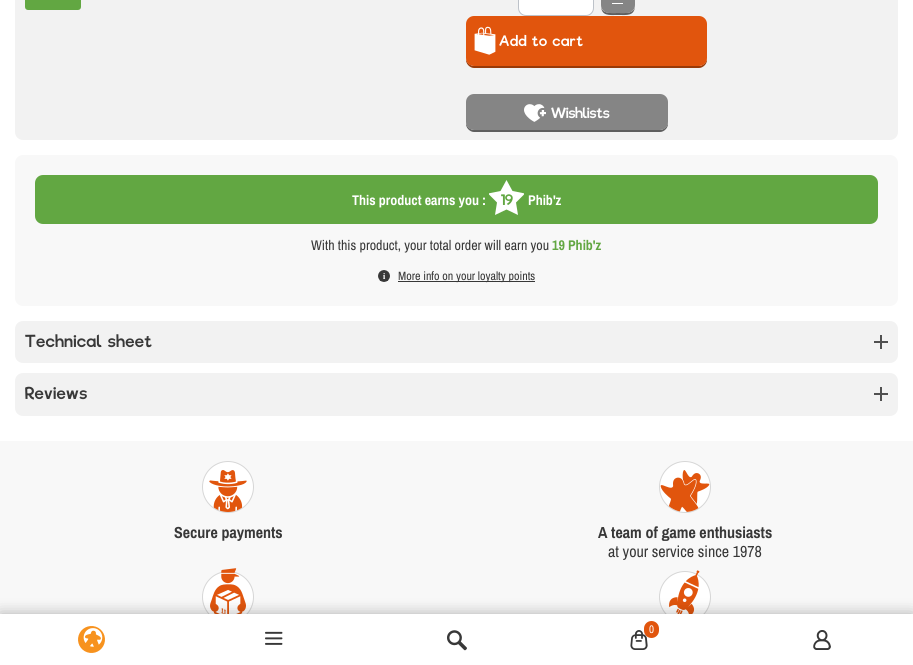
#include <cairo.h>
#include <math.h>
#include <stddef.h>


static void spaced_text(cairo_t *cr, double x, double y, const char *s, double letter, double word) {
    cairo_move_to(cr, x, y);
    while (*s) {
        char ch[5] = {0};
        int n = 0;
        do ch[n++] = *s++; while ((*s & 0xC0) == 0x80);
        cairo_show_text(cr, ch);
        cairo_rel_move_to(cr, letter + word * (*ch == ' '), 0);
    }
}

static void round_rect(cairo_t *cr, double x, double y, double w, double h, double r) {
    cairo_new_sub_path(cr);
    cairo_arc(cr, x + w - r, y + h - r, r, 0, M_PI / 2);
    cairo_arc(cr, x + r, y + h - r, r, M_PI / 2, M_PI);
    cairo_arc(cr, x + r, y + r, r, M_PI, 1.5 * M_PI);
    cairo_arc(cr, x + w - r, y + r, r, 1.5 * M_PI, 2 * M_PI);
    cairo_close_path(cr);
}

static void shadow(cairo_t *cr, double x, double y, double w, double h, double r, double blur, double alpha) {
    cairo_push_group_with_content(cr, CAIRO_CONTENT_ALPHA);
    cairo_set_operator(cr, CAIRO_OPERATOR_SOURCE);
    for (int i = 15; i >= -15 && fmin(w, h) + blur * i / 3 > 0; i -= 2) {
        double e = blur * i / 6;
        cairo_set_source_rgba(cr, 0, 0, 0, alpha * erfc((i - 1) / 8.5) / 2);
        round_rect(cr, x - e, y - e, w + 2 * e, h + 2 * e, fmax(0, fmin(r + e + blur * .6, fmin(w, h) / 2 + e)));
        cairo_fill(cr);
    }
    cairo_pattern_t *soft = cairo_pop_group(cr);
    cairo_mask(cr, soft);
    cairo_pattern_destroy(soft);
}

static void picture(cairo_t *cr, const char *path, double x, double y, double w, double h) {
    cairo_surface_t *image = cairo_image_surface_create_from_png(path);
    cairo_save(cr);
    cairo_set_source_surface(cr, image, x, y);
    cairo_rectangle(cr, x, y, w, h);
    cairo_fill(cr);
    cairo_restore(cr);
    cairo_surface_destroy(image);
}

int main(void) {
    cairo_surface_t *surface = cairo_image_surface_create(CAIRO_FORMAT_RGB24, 913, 665);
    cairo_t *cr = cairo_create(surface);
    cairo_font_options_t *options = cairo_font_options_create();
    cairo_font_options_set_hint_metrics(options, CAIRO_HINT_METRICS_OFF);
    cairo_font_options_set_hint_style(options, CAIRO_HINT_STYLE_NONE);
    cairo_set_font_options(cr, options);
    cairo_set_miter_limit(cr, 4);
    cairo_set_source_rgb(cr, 1, 1, 1);
    cairo_paint(cr);
    cairo_set_source_rgb(cr, 0.949, 0.949, 0.949);
    round_rect(cr, 15, -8, 883, 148, 8);
    cairo_fill(cr);
    cairo_set_source_rgb(cr, 0.384, 0.655, 0.259);
    round_rect(cr, 25, -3, 56, 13, 3);
    cairo_fill(cr);
    cairo_set_source_rgb(cr, 1, 1, 1);
    round_rect(cr, 518.5, -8.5, 75, 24, 7.5);
    cairo_fill_preserve(cr);
    cairo_set_source_rgb(cr, 0.741, 0.761, 0.788);
    cairo_set_line_width(cr, 1);
    cairo_stroke(cr);
    cairo_set_source_rgb(cr, 0.373, 0.373, 0.373);
    cairo_new_path(cr);
    cairo_move_to(cr, 601, 5);
    cairo_curve_to(cr, 601, 16.5, 609, 15, 618, 15);
    cairo_curve_to(cr, 627, 15, 635, 16.5, 635, 5);
    cairo_curve_to(cr, 635, 14.5, 624.5, 13, 618, 13);
    cairo_curve_to(cr, 611.5, 13, 601, 14.5, 601, 5);
    cairo_close_path(cr);
    cairo_fill(cr);
    cairo_set_source_rgb(cr, 0.522, 0.522, 0.522);
    round_rect(cr, 601, -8, 34, 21, 8);
    cairo_fill(cr);
    cairo_set_source_rgb(cr, 1, 1, 1);
    cairo_rectangle(cr, 612, 3, 11, 1);
    cairo_fill(cr);
    cairo_set_source_rgb(cr, 0.6, 0.227, 0.035);
    cairo_new_path(cr);
    cairo_move_to(cr, 466, 58);
    cairo_line_to(cr, 466, 60);
    cairo_curve_to(cr, 466, 64, 470, 68, 474, 68);
    cairo_line_to(cr, 699, 68);
    cairo_curve_to(cr, 703, 68, 707, 64, 707, 60);
    cairo_line_to(cr, 707, 58);
    cairo_curve_to(cr, 707, 62, 703, 66, 699, 66);
    cairo_line_to(cr, 474, 66);
    cairo_curve_to(cr, 470, 66, 466, 62, 466, 58);
    cairo_close_path(cr);
    cairo_fill(cr);
    cairo_set_source_rgb(cr, 0.882, 0.333, 0.051);
    round_rect(cr, 466, 16, 241, 50, 8);
    cairo_fill(cr);
    picture(cr, "img1.png", 474, 26, 22, 29);
    cairo_select_font_face(cr, "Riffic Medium", CAIRO_FONT_SLANT_NORMAL, CAIRO_FONT_WEIGHT_NORMAL);
    cairo_set_font_size(cr, 14);
    cairo_set_source_rgb(cr, 1, 1, 1);
    spaced_text(cr, 499, 46, "Add to cart", 0.75, 0);
    cairo_set_source_rgb(cr, 0.373, 0.373, 0.373);
    cairo_new_path(cr);
    cairo_move_to(cr, 466, 122);
    cairo_line_to(cr, 466, 124);
    cairo_curve_to(cr, 466, 128, 470, 132, 474, 132);
    cairo_line_to(cr, 660, 132);
    cairo_curve_to(cr, 664, 132, 668, 128, 668, 124);
    cairo_line_to(cr, 668, 122);
    cairo_curve_to(cr, 668, 126, 664, 130, 660, 130);
    cairo_line_to(cr, 474, 130);
    cairo_curve_to(cr, 470, 130, 466, 126, 466, 122);
    cairo_close_path(cr);
    cairo_fill(cr);
    cairo_set_source_rgb(cr, 0.522, 0.522, 0.522);
    round_rect(cr, 466, 94, 202, 36, 8);
    cairo_fill(cr);
    picture(cr, "img2.png", 524, 104, 22, 18);
    cairo_set_source_rgb(cr, 1, 1, 1);
    cairo_move_to(cr, 551, 118);
    cairo_show_text(cr, "Wishlists");
    cairo_set_source_rgb(cr, 0.969, 0.969, 0.969);
    round_rect(cr, 15, 155, 883, 151, 8);
    cairo_fill(cr);
    cairo_set_source_rgb(cr, 0.384, 0.655, 0.259);
    round_rect(cr, 35, 175, 843, 49, 8);
    cairo_fill(cr);
    cairo_select_font_face(cr, "Archivo Narrow", CAIRO_FONT_SLANT_NORMAL, CAIRO_FONT_WEIGHT_BOLD);
    cairo_set_source_rgb(cr, 1, 1, 1);
    cairo_move_to(cr, 352, 205);
    cairo_show_text(cr, "This product earns you :");
    cairo_save(cr);
    cairo_rectangle(cr, 489, 180, 35, 35);
    cairo_clip(cr);
    cairo_new_path(cr);
    cairo_move_to(cr, 506.5, 180);
    cairo_line_to(cr, 512.5, 191);
    cairo_line_to(cr, 525, 193.5);
    cairo_line_to(cr, 516, 202.5);
    cairo_line_to(cr, 518, 215);
    cairo_line_to(cr, 506.5, 209.5);
    cairo_line_to(cr, 495, 215);
    cairo_line_to(cr, 497, 202.5);
    cairo_line_to(cr, 488, 193.5);
    cairo_line_to(cr, 500.5, 191);
    cairo_close_path(cr);
    cairo_fill(cr);
    cairo_restore(cr);
    cairo_select_font_face(cr, "Riffic Medium", CAIRO_FONT_SLANT_NORMAL, CAIRO_FONT_WEIGHT_NORMAL);
    cairo_set_source_rgb(cr, 0.384, 0.655, 0.259);
    cairo_move_to(cr, 501, 205);
    cairo_show_text(cr, "19");
    cairo_select_font_face(cr, "Archivo Narrow", CAIRO_FONT_SLANT_NORMAL, CAIRO_FONT_WEIGHT_BOLD);
    cairo_set_source_rgb(cr, 1, 1, 1);
    cairo_move_to(cr, 528, 205);
    cairo_show_text(cr, "Phib'z");
    cairo_select_font_face(cr, "Archivo Narrow", CAIRO_FONT_SLANT_NORMAL, CAIRO_FONT_WEIGHT_NORMAL);
    cairo_set_source_rgb(cr, 0.22, 0.22, 0.22);
    cairo_move_to(cr, 311, 250);
    cairo_show_text(cr, "With this product, your total order will earn you");
    cairo_select_font_face(cr, "Archivo Narrow", CAIRO_FONT_SLANT_NORMAL, CAIRO_FONT_WEIGHT_BOLD);
    cairo_set_source_rgb(cr, 0.384, 0.655, 0.259);
    cairo_move_to(cr, 552, 250);
    cairo_show_text(cr, "19 Phib'z");
    picture(cr, "img3.png", 378, 270, 12, 12);
    cairo_set_source_rgb(cr, 0.22, 0.22, 0.22);
    cairo_rectangle(cr, 398, 281, 137, 1);
    cairo_fill(cr);
    cairo_select_font_face(cr, "Archivo Narrow", CAIRO_FONT_SLANT_NORMAL, CAIRO_FONT_WEIGHT_NORMAL);
    cairo_set_font_size(cr, 12);
    cairo_move_to(cr, 398, 280);
    cairo_show_text(cr, "More info on your loyalty points");
    cairo_set_source_rgb(cr, 0.949, 0.949, 0.949);
    round_rect(cr, 15, 321, 883, 42, 8);
    cairo_fill(cr);
    cairo_select_font_face(cr, "Riffic Medium", CAIRO_FONT_SLANT_NORMAL, CAIRO_FONT_WEIGHT_NORMAL);
    cairo_set_font_size(cr, 16);
    cairo_set_source_rgb(cr, 0.22, 0.22, 0.22);
    spaced_text(cr, 25, 347, "Technical sheet", 0.75, 0);
    cairo_set_source_rgb(cr, 0.314, 0.314, 0.314);
    cairo_rectangle(cr, 880, 335, 2, 14);
    cairo_fill(cr);
    cairo_rectangle(cr, 874, 341, 14, 2);
    cairo_fill(cr);
    cairo_set_source_rgb(cr, 0.949, 0.949, 0.949);
    round_rect(cr, 15, 373, 883, 43, 8);
    cairo_fill(cr);
    cairo_set_source_rgb(cr, 0.22, 0.22, 0.22);
    spaced_text(cr, 25, 399, "Reviews", 0.75, 0);
    cairo_set_source_rgb(cr, 0.314, 0.314, 0.314);
    cairo_rectangle(cr, 880, 387, 2, 14);
    cairo_fill(cr);
    cairo_rectangle(cr, 874, 393, 14, 2);
    cairo_fill(cr);
    cairo_set_source_rgb(cr, 0.969, 0.969, 0.969);
    cairo_rectangle(cr, 0, 441, 913, 173);
    cairo_fill(cr);
    picture(cr, "img4.png", 202, 461, 52, 52);
    cairo_arc(cr, 228, 487, 25.5, 0, 2 * M_PI);
    cairo_set_source_rgb(cr, 0.839, 0.839, 0.839);
    cairo_stroke(cr);
    picture(cr, "img5.png", 209, 470, 38, 42);
    cairo_select_font_face(cr, "Archivo Narrow", CAIRO_FONT_SLANT_NORMAL, CAIRO_FONT_WEIGHT_BOLD);
    cairo_set_source_rgb(cr, 0.22, 0.22, 0.22);
    cairo_move_to(cr, 174, 538);
    cairo_show_text(cr, "Secure payments");
    picture(cr, "img4.png", 659, 461, 52, 52);
    cairo_arc(cr, 685, 487, 25.5, 0, 2 * M_PI);
    cairo_set_source_rgb(cr, 0.839, 0.839, 0.839);
    cairo_stroke(cr);
    picture(cr, "img6.png", 660, 470, 50, 42);
    cairo_set_source_rgb(cr, 0.22, 0.22, 0.22);
    cairo_move_to(cr, 598, 538);
    cairo_show_text(cr, "A team of game enthusiasts");
    cairo_select_font_face(cr, "Archivo Narrow", CAIRO_FONT_SLANT_NORMAL, CAIRO_FONT_WEIGHT_NORMAL);
    cairo_move_to(cr, 608, 557);
    cairo_show_text(cr, "at your service since 1978");
    cairo_set_source_rgb(cr, 1, 1, 1);
    cairo_new_path(cr);
    cairo_arc(cr, 228, 597, 25.5, 0, 2 * M_PI);
    cairo_fill_preserve(cr);
    cairo_set_source_rgb(cr, 0.839, 0.839, 0.839);
    cairo_stroke(cr);
    picture(cr, "img7.png", 210, 568, 36, 46);
    cairo_set_source_rgb(cr, 1, 1, 1);
    cairo_arc(cr, 685, 597, 25.5, 0, 2 * M_PI);
    cairo_fill_preserve(cr);
    cairo_set_source_rgb(cr, 0.839, 0.839, 0.839);
    cairo_stroke(cr);
    picture(cr, "img8.png", 669, 570, 31, 44);
    cairo_set_source_rgb(cr, 0, 0, 0);
    shadow(cr, 0, 614, 913, 51, 0, 7.5, 0.3);
    cairo_set_source_rgb(cr, 1, 1, 1);
    cairo_rectangle(cr, 0, 614, 913, 51);
    cairo_fill(cr);
    picture(cr, "img9.png", 78, 626, 27, 27);
    picture(cr, "img10.png", 265, 631, 18, 14);
    picture(cr, "img11.png", 447, 630, 20, 21);
    picture(cr, "img12.png", 630, 630, 18, 20);
    cairo_set_source_rgb(cr, 0.882, 0.333, 0.051);
    round_rect(cr, 644, 621, 15, 17, 7.5);
    cairo_fill(cr);
    cairo_set_font_size(cr, 11);
    cairo_set_source_rgb(cr, 1, 1, 1);
    cairo_move_to(cr, 649, 633);
    cairo_show_text(cr, "0");
    picture(cr, "img13.png", 813, 630, 18, 20);
    cairo_surface_write_to_png(surface, "page.png");
    cairo_font_options_destroy(options);
    cairo_destroy(cr);
    cairo_surface_destroy(surface);
    return 0;
}
